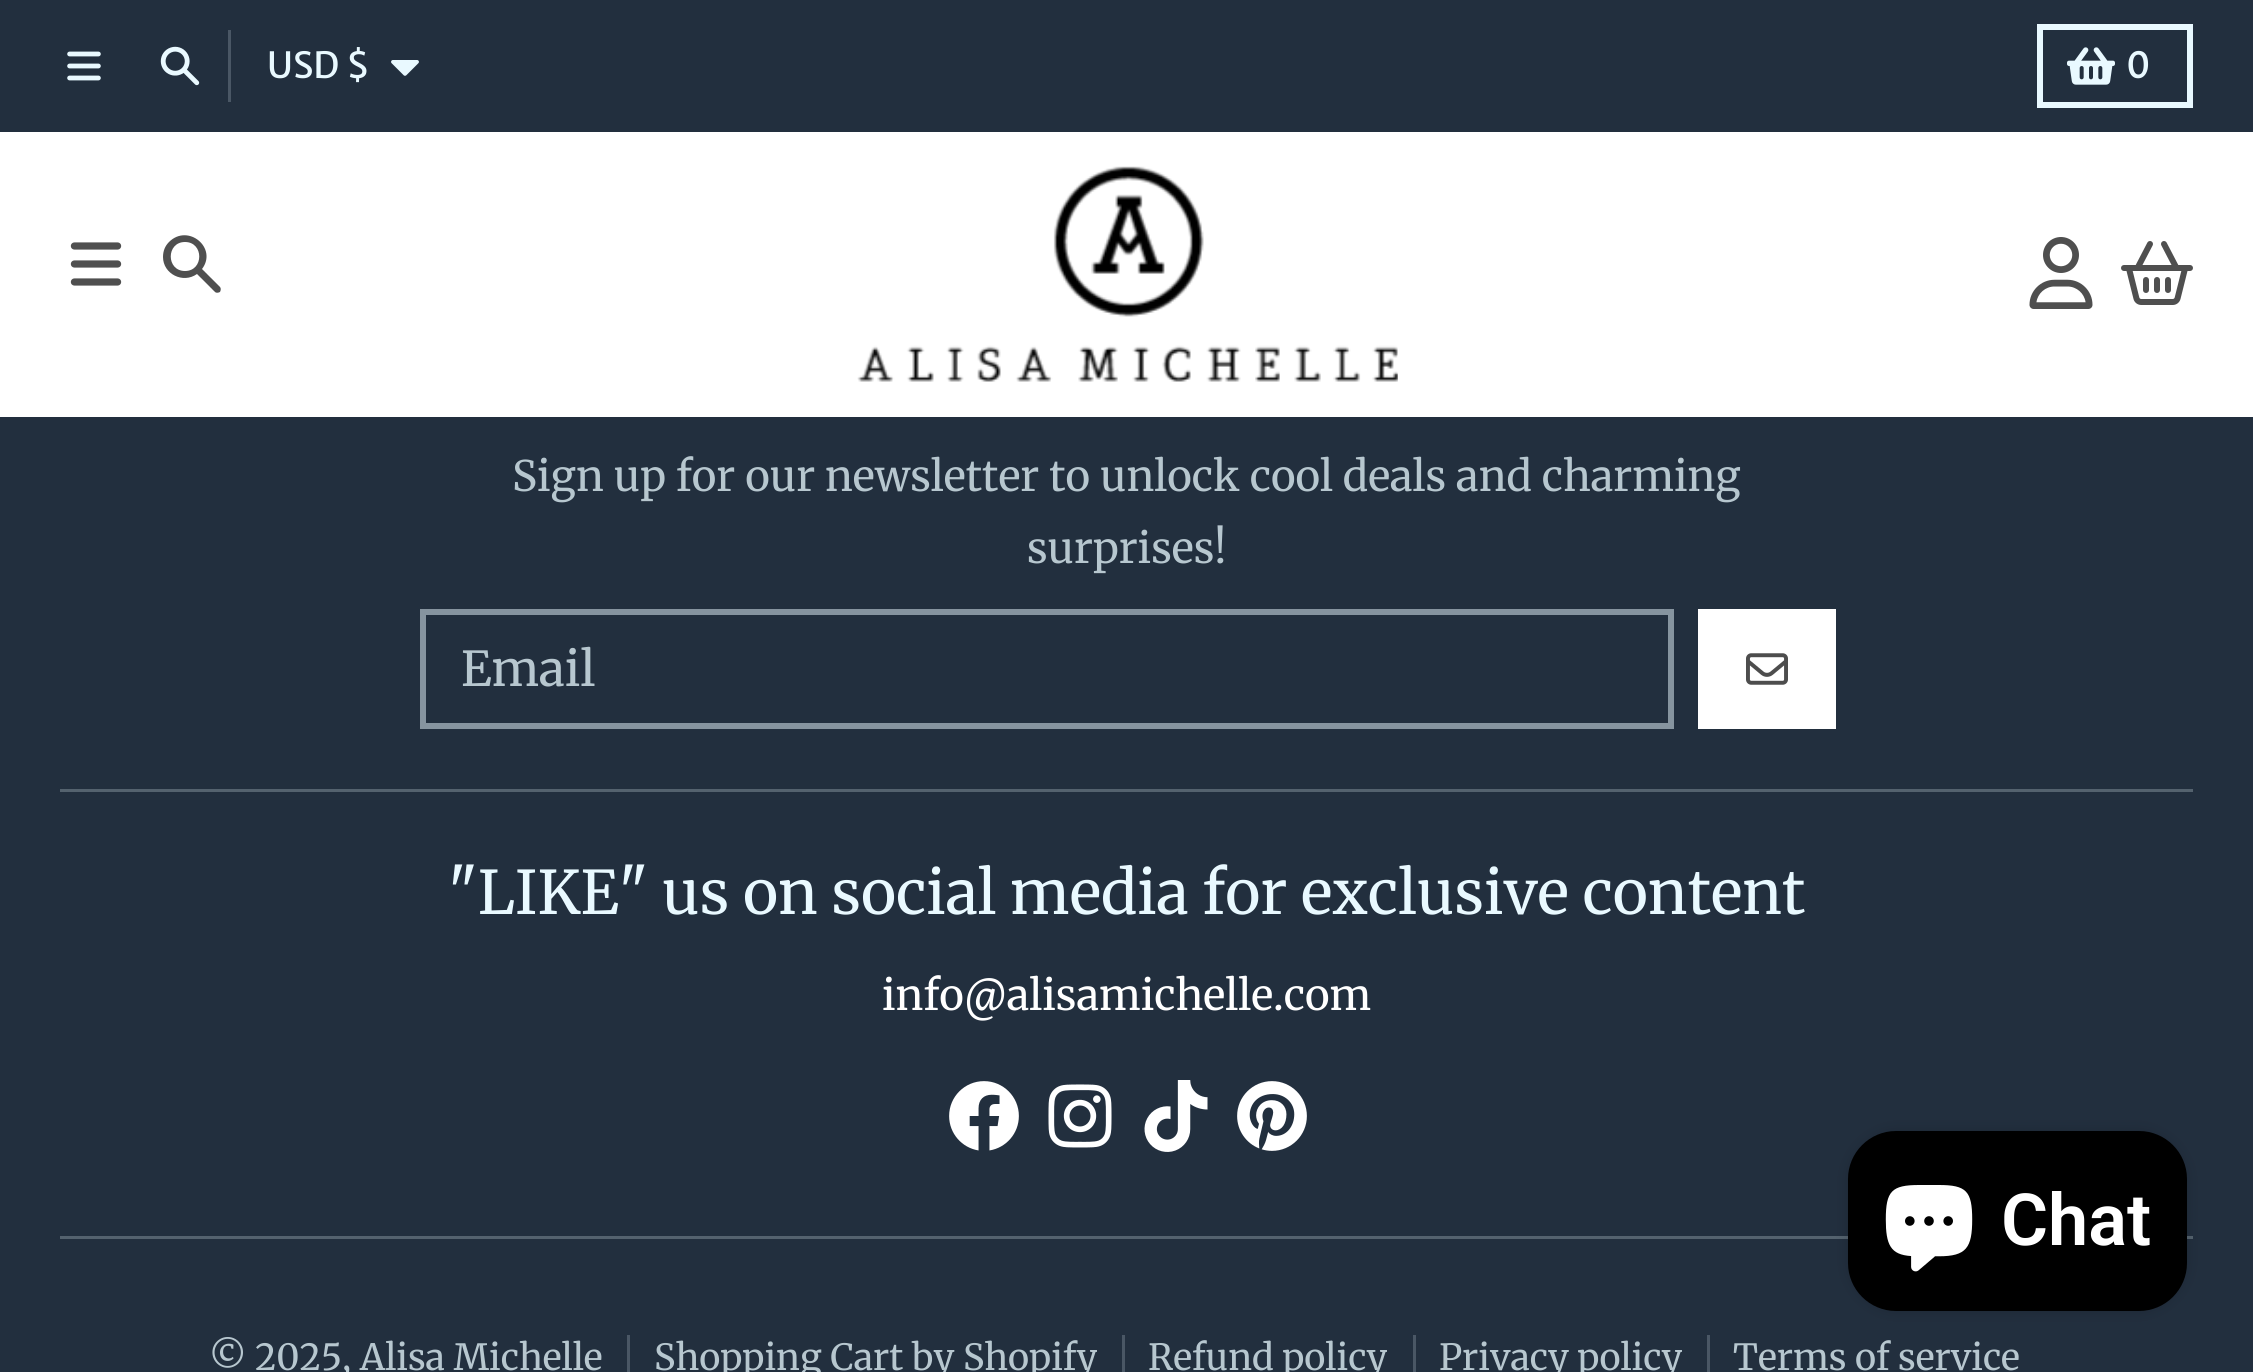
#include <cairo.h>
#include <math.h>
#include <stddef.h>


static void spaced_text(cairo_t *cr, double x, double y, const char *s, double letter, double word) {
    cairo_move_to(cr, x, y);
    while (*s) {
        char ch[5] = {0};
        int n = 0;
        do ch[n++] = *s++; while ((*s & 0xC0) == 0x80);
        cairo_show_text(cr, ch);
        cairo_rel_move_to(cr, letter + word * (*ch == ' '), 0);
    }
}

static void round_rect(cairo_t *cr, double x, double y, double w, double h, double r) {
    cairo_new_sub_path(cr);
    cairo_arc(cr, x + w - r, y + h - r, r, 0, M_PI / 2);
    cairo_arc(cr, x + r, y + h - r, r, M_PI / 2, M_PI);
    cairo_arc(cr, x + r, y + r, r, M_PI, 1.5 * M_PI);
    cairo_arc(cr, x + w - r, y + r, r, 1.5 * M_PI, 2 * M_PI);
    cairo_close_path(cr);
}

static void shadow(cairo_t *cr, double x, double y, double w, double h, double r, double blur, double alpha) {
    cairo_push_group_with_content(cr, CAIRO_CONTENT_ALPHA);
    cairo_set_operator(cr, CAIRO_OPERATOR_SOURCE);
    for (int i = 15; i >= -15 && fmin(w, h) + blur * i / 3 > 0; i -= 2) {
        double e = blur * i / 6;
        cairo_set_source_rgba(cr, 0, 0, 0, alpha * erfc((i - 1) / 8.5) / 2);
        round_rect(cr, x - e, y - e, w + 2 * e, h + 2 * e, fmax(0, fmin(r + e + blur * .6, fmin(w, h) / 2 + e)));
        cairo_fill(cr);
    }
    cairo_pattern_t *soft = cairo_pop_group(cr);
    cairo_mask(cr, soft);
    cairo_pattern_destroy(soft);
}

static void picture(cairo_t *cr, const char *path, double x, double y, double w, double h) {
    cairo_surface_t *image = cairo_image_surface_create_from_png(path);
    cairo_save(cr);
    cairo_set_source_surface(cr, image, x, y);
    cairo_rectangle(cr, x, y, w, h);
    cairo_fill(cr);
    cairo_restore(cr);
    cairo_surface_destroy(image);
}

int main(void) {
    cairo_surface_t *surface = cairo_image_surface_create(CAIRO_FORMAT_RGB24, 2253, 1372);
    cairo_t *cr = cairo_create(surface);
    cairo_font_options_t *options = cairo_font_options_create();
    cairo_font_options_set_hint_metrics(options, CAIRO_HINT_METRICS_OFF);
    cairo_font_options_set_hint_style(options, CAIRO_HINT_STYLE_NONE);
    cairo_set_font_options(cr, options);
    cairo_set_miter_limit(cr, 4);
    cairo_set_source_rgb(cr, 0.133, 0.184, 0.243);
    cairo_paint(cr);
    picture(cr, "img1.png", 67, 51, 34, 30);
    picture(cr, "img2.png", 160, 46, 40, 40);
    cairo_set_source_rgb(cr, 0.29, 0.341, 0.396);
    cairo_rectangle(cr, 228, 30, 3, 72);
    cairo_fill(cr);
    cairo_select_font_face(cr, "Merriweather Sans", CAIRO_FONT_SLANT_NORMAL, CAIRO_FONT_WEIGHT_NORMAL);
    cairo_set_font_size(cr, 36);
    cairo_set_source_rgb(cr, 0.914, 0.976, 1);
    cairo_move_to(cr, 267, 78);
    cairo_show_text(cr, "USD $");
    picture(cr, "img3.png", 391, 60, 28, 16);
    cairo_rectangle(cr, 2040, 27, 150, 78);
    cairo_set_line_width(cr, 6);
    cairo_stroke(cr);
    picture(cr, "img4.png", 2067, 47, 48, 38);
    cairo_move_to(cr, 2126, 78);
    cairo_show_text(cr, "0");
    cairo_set_source_rgb(cr, 1, 1, 1);
    cairo_rectangle(cr, 0, 132, 2253, 285);
    cairo_fill(cr);
    picture(cr, "img5.png", 70, 242, 52, 44);
    cairo_set_source_rgb(cr, 0.31, 0.31, 0.31);
    cairo_set_fill_rule(cr, CAIRO_FILL_RULE_EVEN_ODD);
    cairo_new_path(cr);
    cairo_move_to(cr, 185, 242);
    cairo_curve_to(cr, 166, 242, 166, 271, 185, 271);
    cairo_curve_to(cr, 204, 271, 204, 242, 185, 242);
    cairo_close_path(cr);
    cairo_move_to(cr, 163, 257);
    cairo_curve_to(cr, 163, 251, 165, 246, 169, 242);
    cairo_curve_to(cr, 188, 223, 218, 248, 202, 269);
    cairo_line_to(cr, 220, 287);
    cairo_curve_to(cr, 221, 288, 221, 290, 220, 292);
    cairo_curve_to(cr, 218, 293, 216, 293, 215, 292);
    cairo_line_to(cr, 197, 274);
    cairo_curve_to(cr, 183, 284, 163, 274, 163, 257);
    cairo_close_path(cr);
    cairo_fill(cr);
    picture(cr, "img6.png", 857, 166, 541, 216);
    picture(cr, "img7.png", 2029, 237, 64, 72);
    picture(cr, "img8.png", 2121, 241, 72, 64);
    cairo_select_font_face(cr, "Merriweather", CAIRO_FONT_SLANT_NORMAL, CAIRO_FONT_WEIGHT_NORMAL);
    cairo_set_font_size(cr, 42);
    cairo_set_source_rgb(cr, 0.718, 0.78, 0.812);
    cairo_move_to(cr, 512, 491);
    cairo_show_text(cr, "Sign up for our newsletter to unlock cool deals and charming");
    cairo_move_to(cr, 1027, 563);
    cairo_show_text(cr, "surprises!");
    cairo_rectangle(cr, 423, 612, 1248, 114);
    cairo_set_source_rgb(cr, 0.525, 0.58, 0.624);
    cairo_stroke(cr);
    cairo_set_font_size(cr, 48);
    cairo_set_source_rgb(cr, 0.718, 0.78, 0.812);
    cairo_move_to(cr, 461, 686);
    cairo_show_text(cr, "Email");
    cairo_set_source_rgb(cr, 1, 1, 1);
    cairo_rectangle(cr, 1698, 609, 138, 120);
    cairo_fill(cr);
    picture(cr, "img9.png", 1746, 653, 42, 32);
    cairo_set_source_rgb(cr, 0.329, 0.384, 0.431);
    cairo_rectangle(cr, 60, 789, 2133, 3);
    cairo_fill(cr);
    cairo_set_font_size(cr, 60);
    cairo_set_source_rgb(cr, 0.914, 0.976, 1);
    spaced_text(cr, 448, 914, "\"LIKE\" us on social media for exclusive content", 0, -0.5);
    cairo_set_font_size(cr, 42);
    cairo_set_source_rgb(cr, 1, 1, 1);
    cairo_move_to(cr, 882, 1010);
    cairo_show_text(cr, "info@alisamichelle.com");
    picture(cr, "img10.png", 949, 1081, 70, 70);
    picture(cr, "img11.png", 1048, 1084, 64, 64);
    picture(cr, "img12.png", 1144, 1080, 64, 72);
    picture(cr, "img13.png", 1237, 1081, 70, 70);
    cairo_set_source_rgb(cr, 0.329, 0.384, 0.431);
    cairo_rectangle(cr, 60, 1236, 2133, 3);
    cairo_fill(cr);
    cairo_set_font_size(cr, 36);
    cairo_set_source_rgb(cr, 0.718, 0.78, 0.812);
    cairo_move_to(cr, 209, 1370);
    cairo_show_text(cr, "© 2025, Alisa Michelle");
    cairo_set_source_rgb(cr, 0.29, 0.341, 0.396);
    cairo_rectangle(cr, 627, 1335, 3, 37);
    cairo_fill(cr);
    cairo_set_source_rgb(cr, 0.718, 0.78, 0.812);
    cairo_move_to(cr, 654, 1370);
    cairo_show_text(cr, "Shopping Cart by Shopify");
    cairo_set_source_rgb(cr, 0.29, 0.341, 0.396);
    cairo_rectangle(cr, 1122, 1335, 3, 37);
    cairo_fill(cr);
    cairo_set_source_rgb(cr, 0.718, 0.78, 0.812);
    cairo_move_to(cr, 1148, 1370);
    cairo_show_text(cr, "Refund policy");
    cairo_set_source_rgb(cr, 0.29, 0.341, 0.396);
    cairo_rectangle(cr, 1413, 1335, 3, 37);
    cairo_fill(cr);
    cairo_set_source_rgb(cr, 0.718, 0.78, 0.812);
    cairo_move_to(cr, 1439, 1370);
    cairo_show_text(cr, "Privacy policy");
    cairo_set_source_rgb(cr, 0.29, 0.341, 0.396);
    cairo_rectangle(cr, 1707, 1335, 3, 37);
    cairo_fill(cr);
    cairo_set_source_rgb(cr, 0.718, 0.78, 0.812);
    cairo_move_to(cr, 1733, 1370);
    cairo_show_text(cr, "Terms of service");
    cairo_set_source_rgb(cr, 0, 0, 0);
    shadow(cr, 1848, 1131, 339, 180, 48, 7.5, 0.15);
    cairo_set_source_rgb(cr, 0, 0, 0);
    round_rect(cr, 1848, 1131, 339, 180, 48);
    cairo_fill(cr);
    picture(cr, "img14.png", 1885, 1185, 88, 87);
    cairo_select_font_face(cr, "Roboto SemiBold", CAIRO_FONT_SLANT_NORMAL, CAIRO_FONT_WEIGHT_NORMAL);
    cairo_set_font_size(cr, 72);
    cairo_set_source_rgb(cr, 1, 1, 1);
    cairo_move_to(cr, 2001, 1245);
    cairo_show_text(cr, "Chat");
    cairo_surface_write_to_png(surface, "page.png");
    cairo_font_options_destroy(options);
    cairo_destroy(cr);
    cairo_surface_destroy(surface);
    return 0;
}
